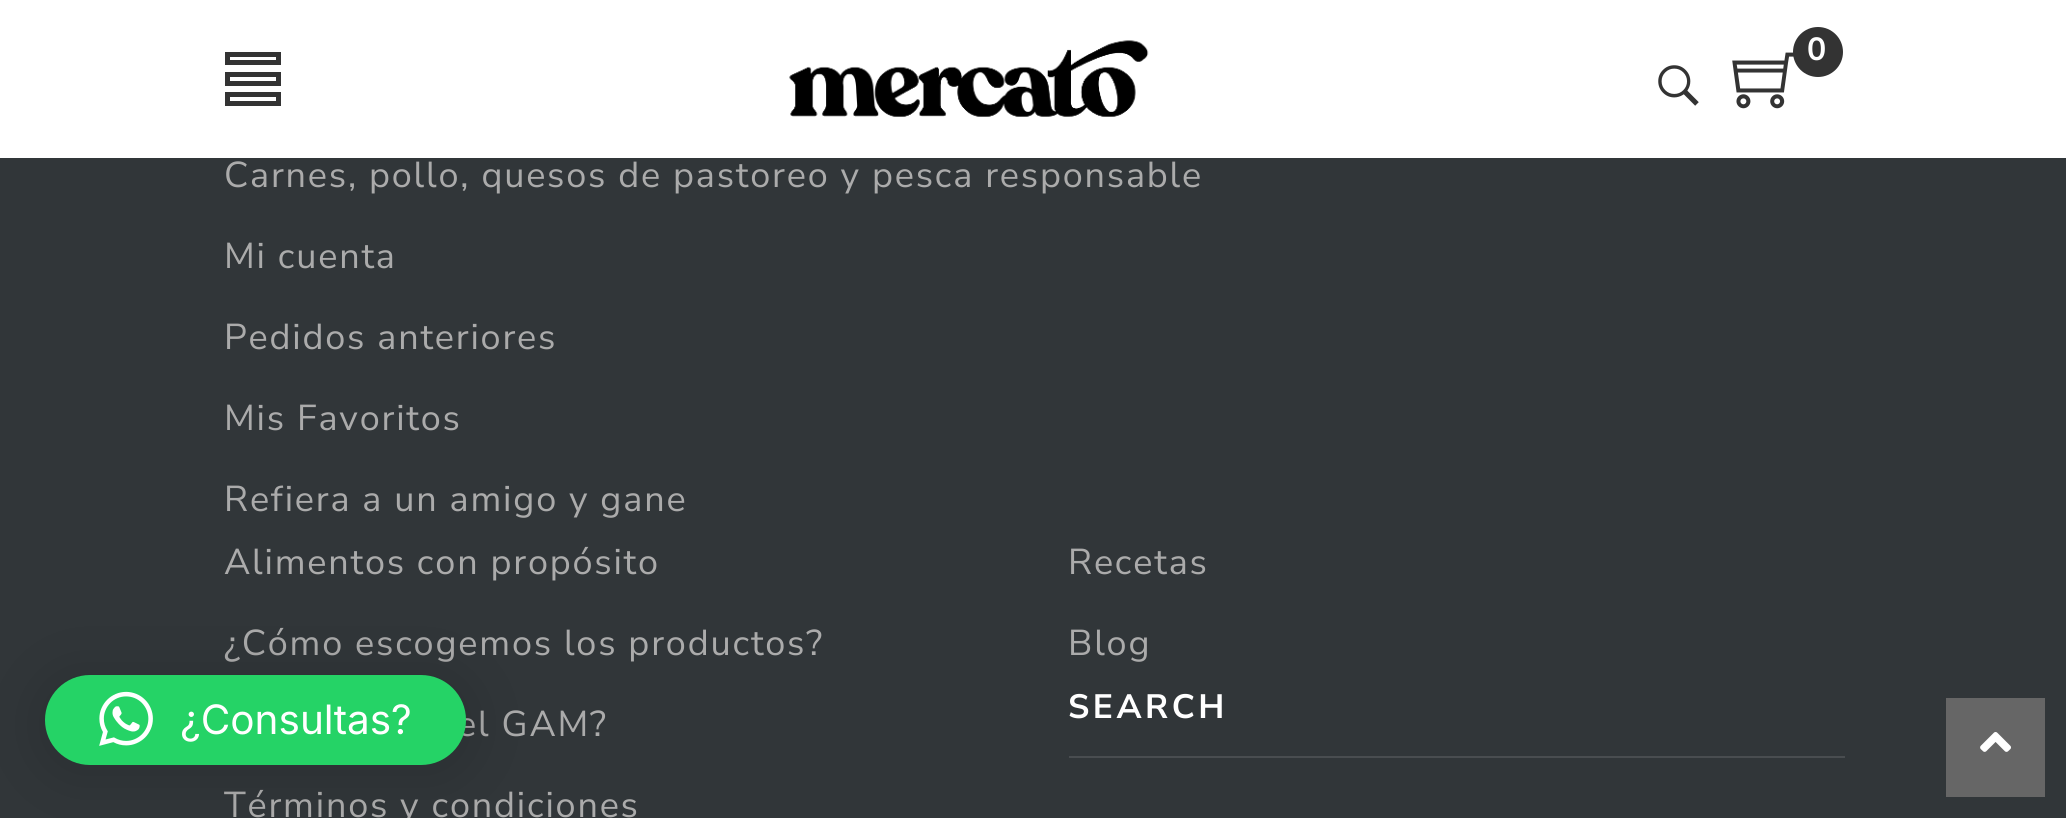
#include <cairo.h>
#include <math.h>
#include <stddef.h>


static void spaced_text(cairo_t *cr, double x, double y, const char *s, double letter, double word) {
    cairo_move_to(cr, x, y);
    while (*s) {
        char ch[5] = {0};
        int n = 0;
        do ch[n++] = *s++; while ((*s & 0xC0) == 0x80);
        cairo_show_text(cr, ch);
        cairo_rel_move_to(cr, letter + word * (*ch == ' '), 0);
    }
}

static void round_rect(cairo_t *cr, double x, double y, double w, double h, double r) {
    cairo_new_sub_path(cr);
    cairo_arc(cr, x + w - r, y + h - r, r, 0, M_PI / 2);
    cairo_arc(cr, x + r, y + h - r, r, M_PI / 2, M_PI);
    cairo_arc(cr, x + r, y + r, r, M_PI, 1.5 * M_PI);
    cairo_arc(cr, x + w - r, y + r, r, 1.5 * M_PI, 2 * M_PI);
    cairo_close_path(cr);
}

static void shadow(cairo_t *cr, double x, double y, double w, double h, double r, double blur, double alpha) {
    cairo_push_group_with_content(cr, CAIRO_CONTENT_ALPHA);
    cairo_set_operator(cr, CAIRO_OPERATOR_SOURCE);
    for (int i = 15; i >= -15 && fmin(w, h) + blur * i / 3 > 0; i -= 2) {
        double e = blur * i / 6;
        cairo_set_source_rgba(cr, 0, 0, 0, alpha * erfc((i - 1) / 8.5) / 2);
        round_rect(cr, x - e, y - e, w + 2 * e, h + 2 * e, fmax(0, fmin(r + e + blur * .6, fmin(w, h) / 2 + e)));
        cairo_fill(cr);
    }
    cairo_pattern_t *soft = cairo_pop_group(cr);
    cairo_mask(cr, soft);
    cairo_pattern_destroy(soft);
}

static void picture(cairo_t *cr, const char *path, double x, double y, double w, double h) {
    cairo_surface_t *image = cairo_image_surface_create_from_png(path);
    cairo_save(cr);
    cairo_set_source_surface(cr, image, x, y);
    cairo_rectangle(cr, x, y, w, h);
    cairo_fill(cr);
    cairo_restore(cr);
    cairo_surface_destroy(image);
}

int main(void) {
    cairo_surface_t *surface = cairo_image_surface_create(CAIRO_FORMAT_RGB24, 2066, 818);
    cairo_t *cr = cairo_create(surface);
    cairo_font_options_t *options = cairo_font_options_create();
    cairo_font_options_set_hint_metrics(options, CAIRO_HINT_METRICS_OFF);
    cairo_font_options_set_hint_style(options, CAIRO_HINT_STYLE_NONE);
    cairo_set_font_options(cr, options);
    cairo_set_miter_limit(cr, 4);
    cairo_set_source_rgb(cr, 0.192, 0.212, 0.224);
    cairo_paint(cr);
    cairo_set_source_rgb(cr, 1, 1, 1);
    cairo_rectangle(cr, 0, 0, 2066, 158);
    cairo_fill(cr);
    cairo_rectangle(cr, 227.5, 74.5, 51, 9);
    cairo_set_source_rgb(cr, 0.2, 0.2, 0.2);
    cairo_set_line_width(cr, 5);
    cairo_stroke(cr);
    cairo_rectangle(cr, 227.5, 54.5, 51, 8);
    cairo_stroke(cr);
    cairo_rectangle(cr, 227.5, 94.5, 51, 9);
    cairo_stroke(cr);
    picture(cr, "img1.png", 789, 40, 360, 77);
    picture(cr, "img2.png", 1732, 52, 62, 57);
    cairo_arc(cr, 1818, 52, 25, 0, 2 * M_PI);
    cairo_fill(cr);
    cairo_select_font_face(cr, "Nunito Sans", CAIRO_FONT_SLANT_NORMAL, CAIRO_FONT_WEIGHT_BOLD);
    cairo_set_font_size(cr, 32);
    cairo_set_source_rgb(cr, 1, 1, 1);
    cairo_move_to(cr, 1807, 60);
    cairo_show_text(cr, "0");
    picture(cr, "img3.png", 1658, 65, 41, 41);
    cairo_select_font_face(cr, "Nunito Sans", CAIRO_FONT_SLANT_NORMAL, CAIRO_FONT_WEIGHT_NORMAL);
    cairo_set_font_size(cr, 36);
    cairo_set_source_rgb(cr, 0.671, 0.671, 0.671);
    spaced_text(cr, 224, 187, "Carnes, pollo, quesos de pastoreo y pesca responsable", 1.8, 0);
    spaced_text(cr, 224, 268, "Mi cuenta", 1.8, 0);
    spaced_text(cr, 224, 349, "Pedidos anteriores", 1.8, 0);
    spaced_text(cr, 224, 430, "Mis Favoritos", 1.8, 0);
    spaced_text(cr, 224, 511, "Refiera a un amigo y gane", 1.8, 0);
    spaced_text(cr, 224, 574, "Alimentos con propósito", 1.8, 0);
    spaced_text(cr, 224, 655, "¿Cómo escogemos los productos?", 1.8, 0);
    spaced_text(cr, 457, 736, "el GAM?", 1.8, 0);
    spaced_text(cr, 224, 817, "Términos y condiciones", 1.8, 0);
    spaced_text(cr, 1068, 574, "Recetas", 1.8, 0);
    spaced_text(cr, 1068, 655, "Blog", 1.8, 0);
    cairo_set_source_rgb(cr, 0.286, 0.302, 0.314);
    cairo_rectangle(cr, 1069, 756, 776, 2);
    cairo_fill(cr);
    cairo_select_font_face(cr, "Nunito Sans", CAIRO_FONT_SLANT_NORMAL, CAIRO_FONT_WEIGHT_BOLD);
    cairo_set_font_size(cr, 33.75);
    cairo_set_source_rgb(cr, 1, 1, 1);
    spaced_text(cr, 1068, 718, "SEARCH", 3.5, 0);
    cairo_set_source_rgb(cr, 0.4, 0.4, 0.4);
    cairo_rectangle(cr, 1946, 698, 99, 99);
    cairo_fill(cr);
    picture(cr, "img4.png", 1980, 732, 31, 20);
    cairo_set_source_rgb(cr, 0, 0, 0);
    shadow(cr, 45, 680, 421, 90, 45, 36, 0.16);
    cairo_set_source_rgb(cr, 0.145, 0.827, 0.4);
    round_rect(cr, 45, 675, 421, 90, 45);
    cairo_fill(cr);
    picture(cr, "img5.png", 99, 691, 54, 55);
    cairo_select_font_face(cr, "Inter", CAIRO_FONT_SLANT_NORMAL, CAIRO_FONT_WEIGHT_NORMAL);
    cairo_set_font_size(cr, 40.5);
    cairo_set_source_rgb(cr, 1, 1, 1);
    cairo_move_to(cr, 180, 734);
    cairo_show_text(cr, "¿Consultas?");
    cairo_surface_write_to_png(surface, "page.png");
    cairo_font_options_destroy(options);
    cairo_destroy(cr);
    cairo_surface_destroy(surface);
    return 0;
}
